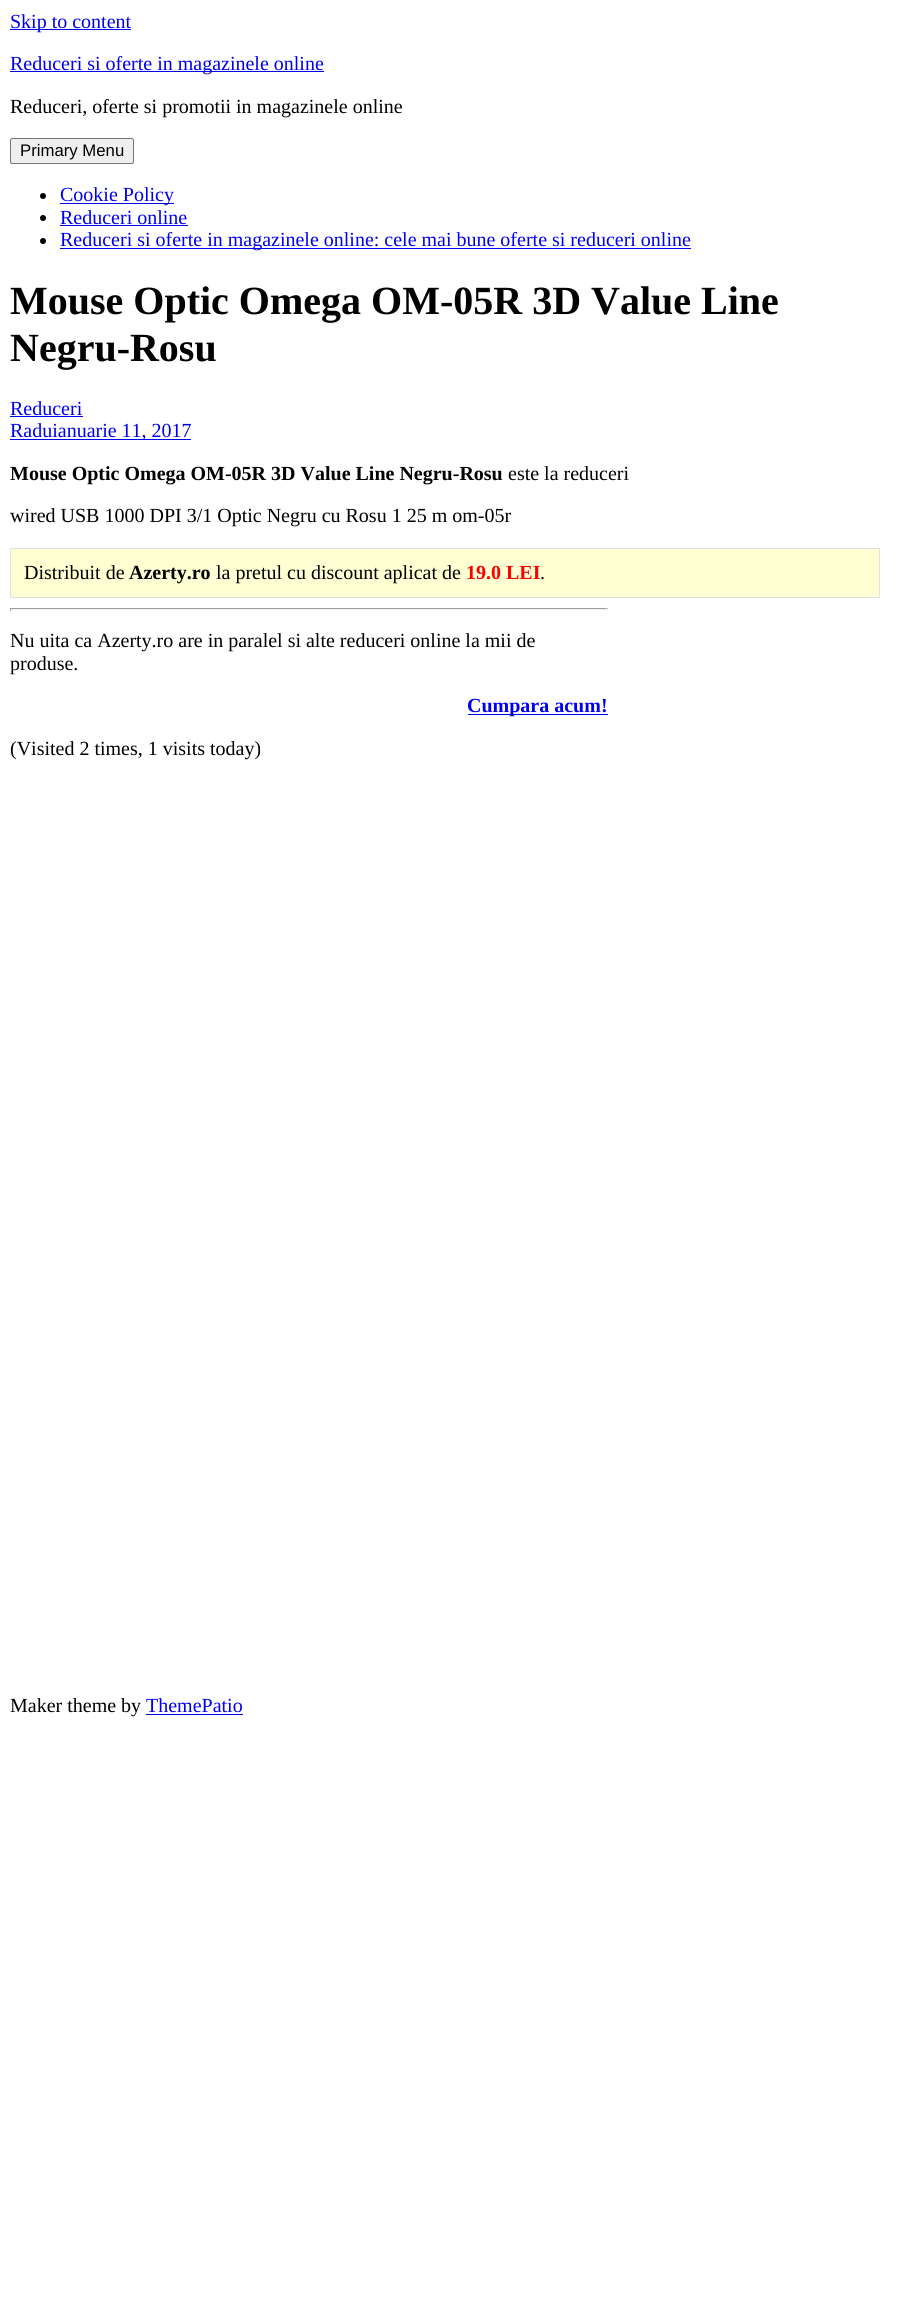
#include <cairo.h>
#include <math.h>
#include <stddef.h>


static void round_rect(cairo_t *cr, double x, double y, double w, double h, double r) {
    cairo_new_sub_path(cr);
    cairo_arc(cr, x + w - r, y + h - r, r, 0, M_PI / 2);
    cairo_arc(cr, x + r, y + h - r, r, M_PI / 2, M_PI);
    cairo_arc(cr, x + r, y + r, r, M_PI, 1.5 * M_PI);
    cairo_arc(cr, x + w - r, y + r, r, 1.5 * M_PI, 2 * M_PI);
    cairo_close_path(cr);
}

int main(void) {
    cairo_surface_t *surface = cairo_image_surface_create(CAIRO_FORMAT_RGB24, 897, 2314);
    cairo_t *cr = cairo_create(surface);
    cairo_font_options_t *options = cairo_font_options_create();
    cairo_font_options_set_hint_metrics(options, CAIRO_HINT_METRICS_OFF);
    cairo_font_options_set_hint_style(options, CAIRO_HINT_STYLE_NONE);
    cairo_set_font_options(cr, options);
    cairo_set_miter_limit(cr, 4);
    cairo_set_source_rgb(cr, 1, 1, 1);
    cairo_paint(cr);
    cairo_set_source_rgb(cr, 0, 0, 0.933);
    cairo_rectangle(cr, 10, 29, 121, 1);
    cairo_fill(cr);
    cairo_select_font_face(cr, "Liberation Serif", CAIRO_FONT_SLANT_NORMAL, CAIRO_FONT_WEIGHT_NORMAL);
    cairo_set_font_size(cr, 20);
    cairo_move_to(cr, 10, 28);
    cairo_show_text(cr, "Skip to content");
    cairo_rectangle(cr, 10, 71, 314, 1);
    cairo_fill(cr);
    cairo_move_to(cr, 10, 70);
    cairo_show_text(cr, "Reduceri si oferte in magazinele online");
    cairo_set_source_rgb(cr, 0, 0, 0);
    cairo_move_to(cr, 10, 113);
    cairo_show_text(cr, "Reduceri, oferte si promotii in magazinele online");
    cairo_set_source_rgb(cr, 0.937, 0.937, 0.937);
    round_rect(cr, 10.5, 138.5, 123, 25, 2);
    cairo_fill_preserve(cr);
    cairo_set_source_rgb(cr, 0.463, 0.463, 0.463);
    cairo_set_line_width(cr, 1);
    cairo_stroke(cr);
    cairo_select_font_face(cr, "Liberation Sans", CAIRO_FONT_SLANT_NORMAL, CAIRO_FONT_WEIGHT_NORMAL);
    cairo_set_font_size(cr, 16.75);
    cairo_set_source_rgb(cr, 0, 0, 0);
    cairo_move_to(cr, 20, 156);
    cairo_show_text(cr, "Primary Menu");
    cairo_new_path(cr);
    cairo_arc(cr, 43, 196, 3, 0, 2 * M_PI);
    cairo_fill(cr);
    cairo_set_source_rgb(cr, 0, 0, 0.933);
    cairo_rectangle(cr, 60, 203, 114, 1);
    cairo_fill(cr);
    cairo_select_font_face(cr, "Liberation Serif", CAIRO_FONT_SLANT_NORMAL, CAIRO_FONT_WEIGHT_NORMAL);
    cairo_set_font_size(cr, 20);
    cairo_move_to(cr, 60, 201);
    cairo_show_text(cr, "Cookie Policy");
    cairo_set_source_rgb(cr, 0, 0, 0);
    cairo_new_path(cr);
    cairo_arc(cr, 43, 218, 3, 0, 2 * M_PI);
    cairo_fill(cr);
    cairo_set_source_rgb(cr, 0, 0, 0.933);
    cairo_move_to(cr, 60, 224);
    cairo_show_text(cr, "Reduceri online");
    cairo_rectangle(cr, 60, 225, 128, 1);
    cairo_fill(cr);
    cairo_set_source_rgb(cr, 0, 0, 0);
    cairo_arc(cr, 43, 241, 3, 0, 2 * M_PI);
    cairo_fill(cr);
    cairo_set_source_rgb(cr, 0, 0, 0.933);
    cairo_rectangle(cr, 60, 248, 631, 1);
    cairo_fill(cr);
    cairo_move_to(cr, 60, 246);
    cairo_show_text(cr, "Reduceri si oferte in magazinele online: cele mai bune oferte si reduceri online");
    cairo_select_font_face(cr, "Liberation Serif", CAIRO_FONT_SLANT_NORMAL, CAIRO_FONT_WEIGHT_BOLD);
    cairo_set_font_size(cr, 40);
    cairo_set_source_rgb(cr, 0, 0, 0);
    cairo_move_to(cr, 10, 314);
    cairo_show_text(cr, "Mouse Optic Omega OM-05R 3D Value Line");
    cairo_move_to(cr, 10, 361);
    cairo_show_text(cr, "Negru-Rosu");
    cairo_select_font_face(cr, "Liberation Serif", CAIRO_FONT_SLANT_NORMAL, CAIRO_FONT_WEIGHT_NORMAL);
    cairo_set_font_size(cr, 20);
    cairo_set_source_rgb(cr, 0, 0, 0.933);
    cairo_move_to(cr, 10, 415);
    cairo_show_text(cr, "Reduceri");
    cairo_rectangle(cr, 10, 416, 73, 1);
    cairo_fill(cr);
    cairo_rectangle(cr, 10, 439, 181, 1);
    cairo_fill(cr);
    cairo_move_to(cr, 10, 437);
    cairo_show_text(cr, "Raduianuarie 11, 2017");
    cairo_select_font_face(cr, "Liberation Serif", CAIRO_FONT_SLANT_NORMAL, CAIRO_FONT_WEIGHT_BOLD);
    cairo_set_source_rgb(cr, 0, 0, 0);
    cairo_move_to(cr, 10, 480);
    cairo_show_text(cr, "Mouse Optic Omega OM-05R 3D Value Line Negru-Rosu");
    cairo_select_font_face(cr, "Liberation Serif", CAIRO_FONT_SLANT_NORMAL, CAIRO_FONT_WEIGHT_NORMAL);
    cairo_move_to(cr, 508, 480);
    cairo_show_text(cr, "este la reduceri");
    cairo_move_to(cr, 10, 522);
    cairo_show_text(cr, "wired USB 1000 DPI 3/1 Optic Negru cu Rosu 1 25 m om-05r");
    cairo_set_source_rgb(cr, 1, 1, 0.831);
    cairo_rectangle(cr, 10.5, 548.5, 869, 49);
    cairo_fill_preserve(cr);
    cairo_set_source_rgb(cr, 0.882, 0.882, 0.882);
    cairo_stroke(cr);
    cairo_set_source_rgb(cr, 0, 0, 0);
    cairo_move_to(cr, 24, 579);
    cairo_show_text(cr, "Distribuit de");
    cairo_select_font_face(cr, "Liberation Serif", CAIRO_FONT_SLANT_NORMAL, CAIRO_FONT_WEIGHT_BOLD);
    cairo_move_to(cr, 129, 579);
    cairo_show_text(cr, "Azerty.ro");
    cairo_select_font_face(cr, "Liberation Serif", CAIRO_FONT_SLANT_NORMAL, CAIRO_FONT_WEIGHT_NORMAL);
    cairo_move_to(cr, 216, 579);
    cairo_show_text(cr, "la pretul cu discount aplicat de");
    cairo_select_font_face(cr, "Liberation Serif", CAIRO_FONT_SLANT_NORMAL, CAIRO_FONT_WEIGHT_BOLD);
    cairo_set_source_rgb(cr, 1, 0, 0);
    cairo_move_to(cr, 466, 579);
    cairo_show_text(cr, "19.0 LEI");
    cairo_select_font_face(cr, "Liberation Serif", CAIRO_FONT_SLANT_NORMAL, CAIRO_FONT_WEIGHT_NORMAL);
    cairo_set_source_rgb(cr, 0, 0, 0);
    cairo_move_to(cr, 540, 579);
    cairo_show_text(cr, ".");
    cairo_set_source_rgb(cr, 0.624, 0.624, 0.624);
    cairo_rectangle(cr, 10, 608, 598, 1);
    cairo_fill(cr);
    cairo_set_source_rgb(cr, 0.933, 0.933, 0.933);
    cairo_rectangle(cr, 606, 608, 1, 3);
    cairo_fill(cr);
    cairo_rectangle(cr, 10, 609, 598, 1);
    cairo_fill(cr);
    cairo_set_source_rgb(cr, 0.624, 0.624, 0.624);
    cairo_rectangle(cr, 10, 608, 1, 3);
    cairo_fill(cr);
    cairo_set_source_rgb(cr, 0, 0, 0);
    cairo_move_to(cr, 10, 647);
    cairo_show_text(cr, "Nu uita ca Azerty.ro are in paralel si alte reduceri online la mii de");
    cairo_move_to(cr, 10, 670);
    cairo_show_text(cr, "produse.");
    cairo_set_source_rgb(cr, 0, 0, 0.933);
    cairo_rectangle(cr, 468, 714, 140, 1);
    cairo_fill(cr);
    cairo_select_font_face(cr, "Liberation Serif", CAIRO_FONT_SLANT_NORMAL, CAIRO_FONT_WEIGHT_BOLD);
    cairo_move_to(cr, 467, 712);
    cairo_show_text(cr, "Cumpara acum!");
    cairo_select_font_face(cr, "Liberation Serif", CAIRO_FONT_SLANT_NORMAL, CAIRO_FONT_WEIGHT_NORMAL);
    cairo_set_source_rgb(cr, 0, 0, 0);
    cairo_move_to(cr, 10, 755);
    cairo_show_text(cr, "(Visited 2 times, 1 visits today)");
    cairo_move_to(cr, 10, 1712);
    cairo_show_text(cr, "Maker theme by");
    cairo_set_source_rgb(cr, 0, 0, 0.933);
    cairo_move_to(cr, 146, 1712);
    cairo_show_text(cr, "ThemePatio");
    cairo_rectangle(cr, 146, 1714, 97, 1);
    cairo_fill(cr);
    cairo_surface_write_to_png(surface, "page.png");
    cairo_font_options_destroy(options);
    cairo_destroy(cr);
    cairo_surface_destroy(surface);
    return 0;
}
